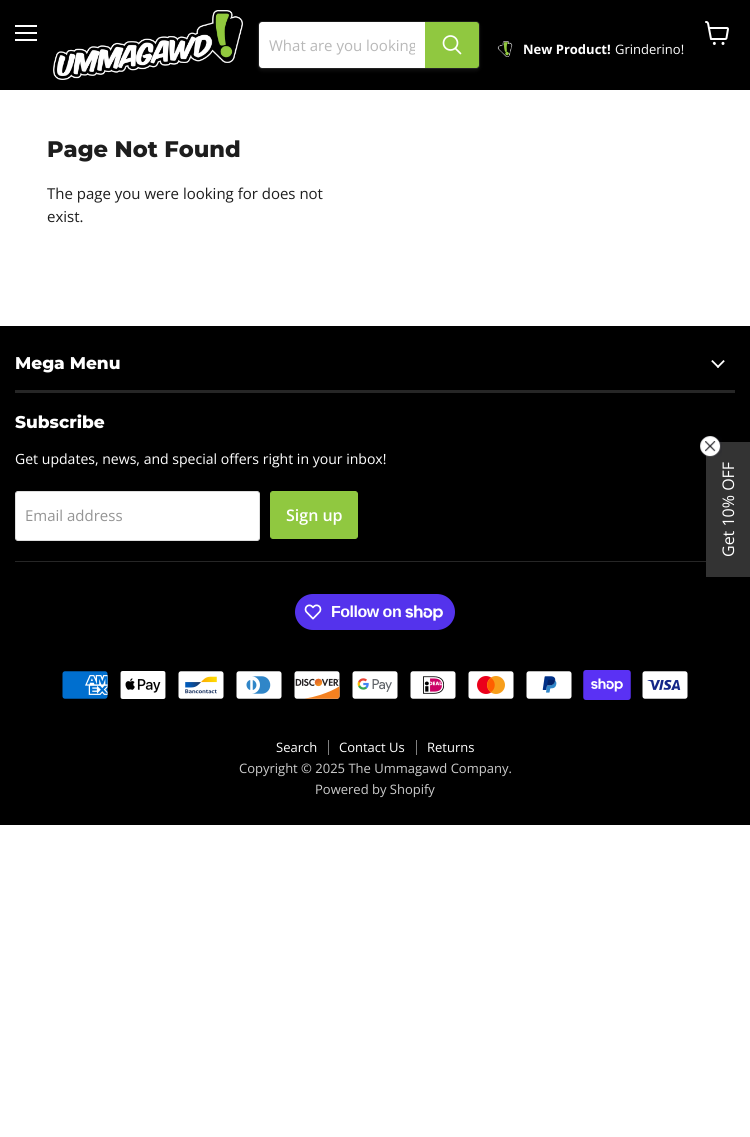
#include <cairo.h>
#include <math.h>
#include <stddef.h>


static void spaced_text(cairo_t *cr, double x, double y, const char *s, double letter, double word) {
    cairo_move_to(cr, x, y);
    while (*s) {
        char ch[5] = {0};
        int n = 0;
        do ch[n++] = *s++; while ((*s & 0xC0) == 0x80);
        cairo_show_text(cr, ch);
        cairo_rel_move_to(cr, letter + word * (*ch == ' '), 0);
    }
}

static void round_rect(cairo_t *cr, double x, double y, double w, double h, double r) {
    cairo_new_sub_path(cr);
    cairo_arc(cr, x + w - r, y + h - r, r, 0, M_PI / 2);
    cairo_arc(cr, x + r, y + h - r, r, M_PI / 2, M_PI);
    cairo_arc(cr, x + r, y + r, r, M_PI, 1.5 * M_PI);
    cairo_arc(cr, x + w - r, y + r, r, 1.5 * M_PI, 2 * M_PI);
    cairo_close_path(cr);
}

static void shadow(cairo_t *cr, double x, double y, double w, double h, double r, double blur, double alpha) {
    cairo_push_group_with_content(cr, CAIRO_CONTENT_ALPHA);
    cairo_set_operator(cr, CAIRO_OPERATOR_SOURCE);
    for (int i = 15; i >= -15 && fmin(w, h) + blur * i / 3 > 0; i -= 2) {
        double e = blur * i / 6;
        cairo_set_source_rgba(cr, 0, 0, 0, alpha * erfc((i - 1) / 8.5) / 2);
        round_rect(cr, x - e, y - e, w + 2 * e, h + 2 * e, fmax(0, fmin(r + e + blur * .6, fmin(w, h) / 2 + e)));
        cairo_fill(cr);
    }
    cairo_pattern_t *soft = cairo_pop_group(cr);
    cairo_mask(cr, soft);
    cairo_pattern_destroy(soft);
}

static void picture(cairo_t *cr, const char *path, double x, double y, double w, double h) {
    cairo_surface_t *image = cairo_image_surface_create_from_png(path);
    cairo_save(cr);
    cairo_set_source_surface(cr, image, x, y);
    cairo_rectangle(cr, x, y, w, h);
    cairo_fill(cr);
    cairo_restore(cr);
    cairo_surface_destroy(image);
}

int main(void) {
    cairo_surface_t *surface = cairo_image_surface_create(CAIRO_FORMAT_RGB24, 750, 1137);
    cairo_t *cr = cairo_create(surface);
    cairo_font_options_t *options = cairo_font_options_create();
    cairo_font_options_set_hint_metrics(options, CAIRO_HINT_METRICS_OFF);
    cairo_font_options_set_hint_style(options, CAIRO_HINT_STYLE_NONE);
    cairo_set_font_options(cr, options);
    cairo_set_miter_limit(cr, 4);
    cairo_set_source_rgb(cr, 1, 1, 1);
    cairo_paint(cr);
    cairo_set_source_rgb(cr, 0, 0, 0);
    cairo_rectangle(cr, 0, 0, 750, 90);
    cairo_fill(cr);
    cairo_set_source_rgb(cr, 1, 1, 1);
    cairo_rectangle(cr, 15, 25, 22, 2);
    cairo_fill(cr);
    cairo_rectangle(cr, 15, 32, 22, 2);
    cairo_fill(cr);
    cairo_rectangle(cr, 15, 39, 22, 2);
    cairo_fill(cr);
    picture(cr, "img1.png", 705, 21, 24, 24);
    picture(cr, "img2.png", 53, 10, 190, 70);
    cairo_set_source_rgb(cr, 0.502, 0.502, 0.502);
    shadow(cr, 258, 23, 222, 48, 4, 1.5, 0.11);
    round_rect(cr, 258.5, 21.5, 221, 47, 3.5);
    cairo_set_source_rgba(cr, 0.502, 0.502, 0.502, 0.2);
    cairo_set_line_width(cr, 1);
    cairo_stroke(cr);
    cairo_set_source_rgb(cr, 1, 1, 1);
    cairo_new_path(cr);
    cairo_move_to(cr, 262, 22);
    cairo_line_to(cr, 425, 22);
    cairo_line_to(cr, 425, 68);
    cairo_line_to(cr, 262, 68);
    cairo_curve_to(cr, 260.5, 68, 259, 66.5, 259, 65);
    cairo_line_to(cr, 259, 25);
    cairo_curve_to(cr, 259, 23.5, 260.5, 22, 262, 22);
    cairo_close_path(cr);
    cairo_fill(cr);
    cairo_save(cr);
    cairo_rectangle(cr, 269, 35, 146, 20);
    cairo_clip(cr);
    cairo_select_font_face(cr, "Open Sans", CAIRO_FONT_SLANT_NORMAL, CAIRO_FONT_WEIGHT_NORMAL);
    cairo_set_font_size(cr, 15);
    cairo_set_source_rgb(cr, 0.722, 0.722, 0.722);
    cairo_move_to(cr, 269, 51);
    cairo_show_text(cr, "What are you looking");
    cairo_restore(cr);
    cairo_set_source_rgb(cr, 0.565, 0.784, 0.251);
    cairo_new_path(cr);
    cairo_move_to(cr, 425.5, 22.5);
    cairo_line_to(cr, 476, 22.5);
    cairo_curve_to(cr, 477.5, 22.5, 478.5, 23.5, 478.5, 25);
    cairo_line_to(cr, 478.5, 65);
    cairo_curve_to(cr, 478.5, 66.5, 477.5, 67.5, 476, 67.5);
    cairo_line_to(cr, 425.5, 67.5);
    cairo_close_path(cr);
    cairo_fill_preserve(cr);
    cairo_stroke(cr);
    cairo_new_path(cr);
    cairo_move_to(cr, 460.5, 53.5);
    cairo_line_to(cr, 455.5, 48.5);
    cairo_set_source_rgb(cr, 1, 1, 1);
    cairo_set_line_width(cr, 1.7);
    cairo_set_line_cap(cr, CAIRO_LINE_CAP_ROUND);
    cairo_stroke(cr);
    cairo_arc(cr, 450.5, 43, 7, 0, 2 * M_PI);
    cairo_set_line_cap(cr, CAIRO_LINE_CAP_BUTT);
    cairo_stroke(cr);
    picture(cr, "img3.png", 497, 41, 16, 16);
    cairo_select_font_face(cr, "Open Sans", CAIRO_FONT_SLANT_NORMAL, CAIRO_FONT_WEIGHT_BOLD);
    cairo_set_font_size(cr, 13);
    cairo_move_to(cr, 523, 54);
    cairo_show_text(cr, "New Product!");
    cairo_select_font_face(cr, "Open Sans", CAIRO_FONT_SLANT_NORMAL, CAIRO_FONT_WEIGHT_NORMAL);
    cairo_move_to(cr, 615, 54);
    cairo_show_text(cr, "Grinderino!");
    cairo_select_font_face(cr, "Montserrat ExtraBold", CAIRO_FONT_SLANT_NORMAL, CAIRO_FONT_WEIGHT_NORMAL);
    cairo_set_font_size(cr, 22.5);
    cairo_set_source_rgb(cr, 0.114, 0.114, 0.114);
    cairo_move_to(cr, 47, 157);
    cairo_show_text(cr, "Page Not Found");
    cairo_select_font_face(cr, "Open Sans", CAIRO_FONT_SLANT_NORMAL, CAIRO_FONT_WEIGHT_NORMAL);
    cairo_set_font_size(cr, 15);
    cairo_move_to(cr, 47, 199);
    cairo_show_text(cr, "The page you were looking for does not");
    cairo_move_to(cr, 47, 222);
    cairo_show_text(cr, "exist.");
    cairo_set_source_rgb(cr, 0, 0, 0);
    cairo_rectangle(cr, 0, 326, 750, 499);
    cairo_fill(cr);
    cairo_set_source_rgb(cr, 0.149, 0.149, 0.149);
    cairo_rectangle(cr, 15, 390, 720, 3);
    cairo_fill(cr);
    cairo_select_font_face(cr, "Montserrat ExtraBold", CAIRO_FONT_SLANT_NORMAL, CAIRO_FONT_WEIGHT_NORMAL);
    cairo_set_font_size(cr, 17);
    cairo_set_source_rgb(cr, 1, 1, 1);
    cairo_move_to(cr, 15, 369);
    cairo_show_text(cr, "Mega Menu");
    picture(cr, "img4.png", 711, 360, 14, 8);
    cairo_set_source_rgb(cr, 0.149, 0.149, 0.149);
    cairo_rectangle(cr, 15, 561, 691, 1);
    cairo_fill(cr);
    cairo_set_source_rgb(cr, 1, 1, 1);
    cairo_move_to(cr, 15, 428);
    cairo_show_text(cr, "Subscribe");
    cairo_select_font_face(cr, "Open Sans", CAIRO_FONT_SLANT_NORMAL, CAIRO_FONT_WEIGHT_NORMAL);
    cairo_set_font_size(cr, 14.05);
    cairo_move_to(cr, 15, 464);
    cairo_show_text(cr, "Get updates, news, and special offers right in your inbox!");
    round_rect(cr, 15.5, 491.5, 244, 49, 2.5);
    cairo_fill_preserve(cr);
    cairo_set_source_rgb(cr, 0.867, 0.867, 0.867);
    cairo_set_line_width(cr, 1);
    cairo_stroke(cr);
    cairo_set_font_size(cr, 15);
    cairo_set_source_rgb(cr, 0.58, 0.58, 0.58);
    cairo_move_to(cr, 25, 521);
    cairo_show_text(cr, "Email address");
    cairo_set_source_rgb(cr, 0.565, 0.784, 0.251);
    round_rect(cr, 270.5, 491.5, 87, 47, 2.5);
    cairo_fill_preserve(cr);
    cairo_stroke(cr);
    cairo_select_font_face(cr, "Open Sans SemiBold", CAIRO_FONT_SLANT_NORMAL, CAIRO_FONT_WEIGHT_NORMAL);
    cairo_set_font_size(cr, 16);
    cairo_set_source_rgb(cr, 1, 1, 1);
    cairo_move_to(cr, 286, 521);
    cairo_show_text(cr, "Sign up");
    cairo_set_source_rgb(cr, 0.329, 0.2, 0.922);
    round_rect(cr, 295, 594, 160, 36, 18);
    cairo_fill(cr);
    picture(cr, "img5.png", 304, 604, 18, 16);
    cairo_select_font_face(cr, "Liberation Sans", CAIRO_FONT_SLANT_NORMAL, CAIRO_FONT_WEIGHT_BOLD);
    cairo_set_source_rgb(cr, 1, 1, 1);
    spaced_text(cr, 331, 617, "Follow on", -0.5, 0);
    picture(cr, "img6.png", 405, 605, 38, 16);
    picture(cr, "img7.png", 62, 671, 46, 28);
    picture(cr, "img8.png", 120, 671, 46, 28);
    picture(cr, "img9.png", 178, 671, 46, 28);
    picture(cr, "img10.png", 236, 671, 46, 28);
    picture(cr, "img11.png", 294, 671, 46, 28);
    picture(cr, "img12.png", 352, 671, 46, 28);
    picture(cr, "img13.png", 410, 671, 46, 28);
    picture(cr, "img14.png", 468, 671, 46, 28);
    picture(cr, "img15.png", 526, 671, 46, 28);
    picture(cr, "img16.png", 583, 670, 48, 30);
    picture(cr, "img17.png", 642, 671, 46, 28);
    cairo_set_source_rgb(cr, 0.502, 0.502, 0.502);
    cairo_rectangle(cr, 328, 740, 1, 15);
    cairo_fill(cr);
    cairo_select_font_face(cr, "Open Sans", CAIRO_FONT_SLANT_NORMAL, CAIRO_FONT_WEIGHT_NORMAL);
    cairo_set_font_size(cr, 13);
    cairo_set_source_rgb(cr, 1, 1, 1);
    cairo_move_to(cr, 276, 752);
    cairo_show_text(cr, "Search");
    cairo_set_source_rgb(cr, 0.502, 0.502, 0.502);
    cairo_rectangle(cr, 416, 740, 1, 15);
    cairo_fill(cr);
    cairo_set_source_rgb(cr, 1, 1, 1);
    cairo_move_to(cr, 339, 752);
    cairo_show_text(cr, "Contact Us");
    cairo_move_to(cr, 427, 752);
    cairo_show_text(cr, "Returns");
    cairo_set_source_rgb(cr, 0.8, 0.8, 0.8);
    cairo_move_to(cr, 239, 773);
    cairo_show_text(cr, "Copyright © 2025 The Ummagawd Company.");
    cairo_move_to(cr, 315, 794);
    cairo_show_text(cr, "Powered by Shopify");
    cairo_set_source_rgb(cr, 0.2, 0.2, 0.2);
    cairo_rectangle(cr, 706, 442, 44, 135);
    cairo_fill(cr);
    picture(cr, "img18.png", 700, 436, 22, 21);
    cairo_set_font_size(cr, 16);
    cairo_set_source_rgb(cr, 1, 1, 1);
    cairo_save(cr);
    cairo_translate(cr, 734, 557);
    cairo_rotate(cr, -90 * M_PI / 180);
    cairo_move_to(cr, 0, 0);
    cairo_show_text(cr, "Get 10% OFF");
    cairo_restore(cr);
    cairo_surface_write_to_png(surface, "page.png");
    cairo_font_options_destroy(options);
    cairo_destroy(cr);
    cairo_surface_destroy(surface);
    return 0;
}
